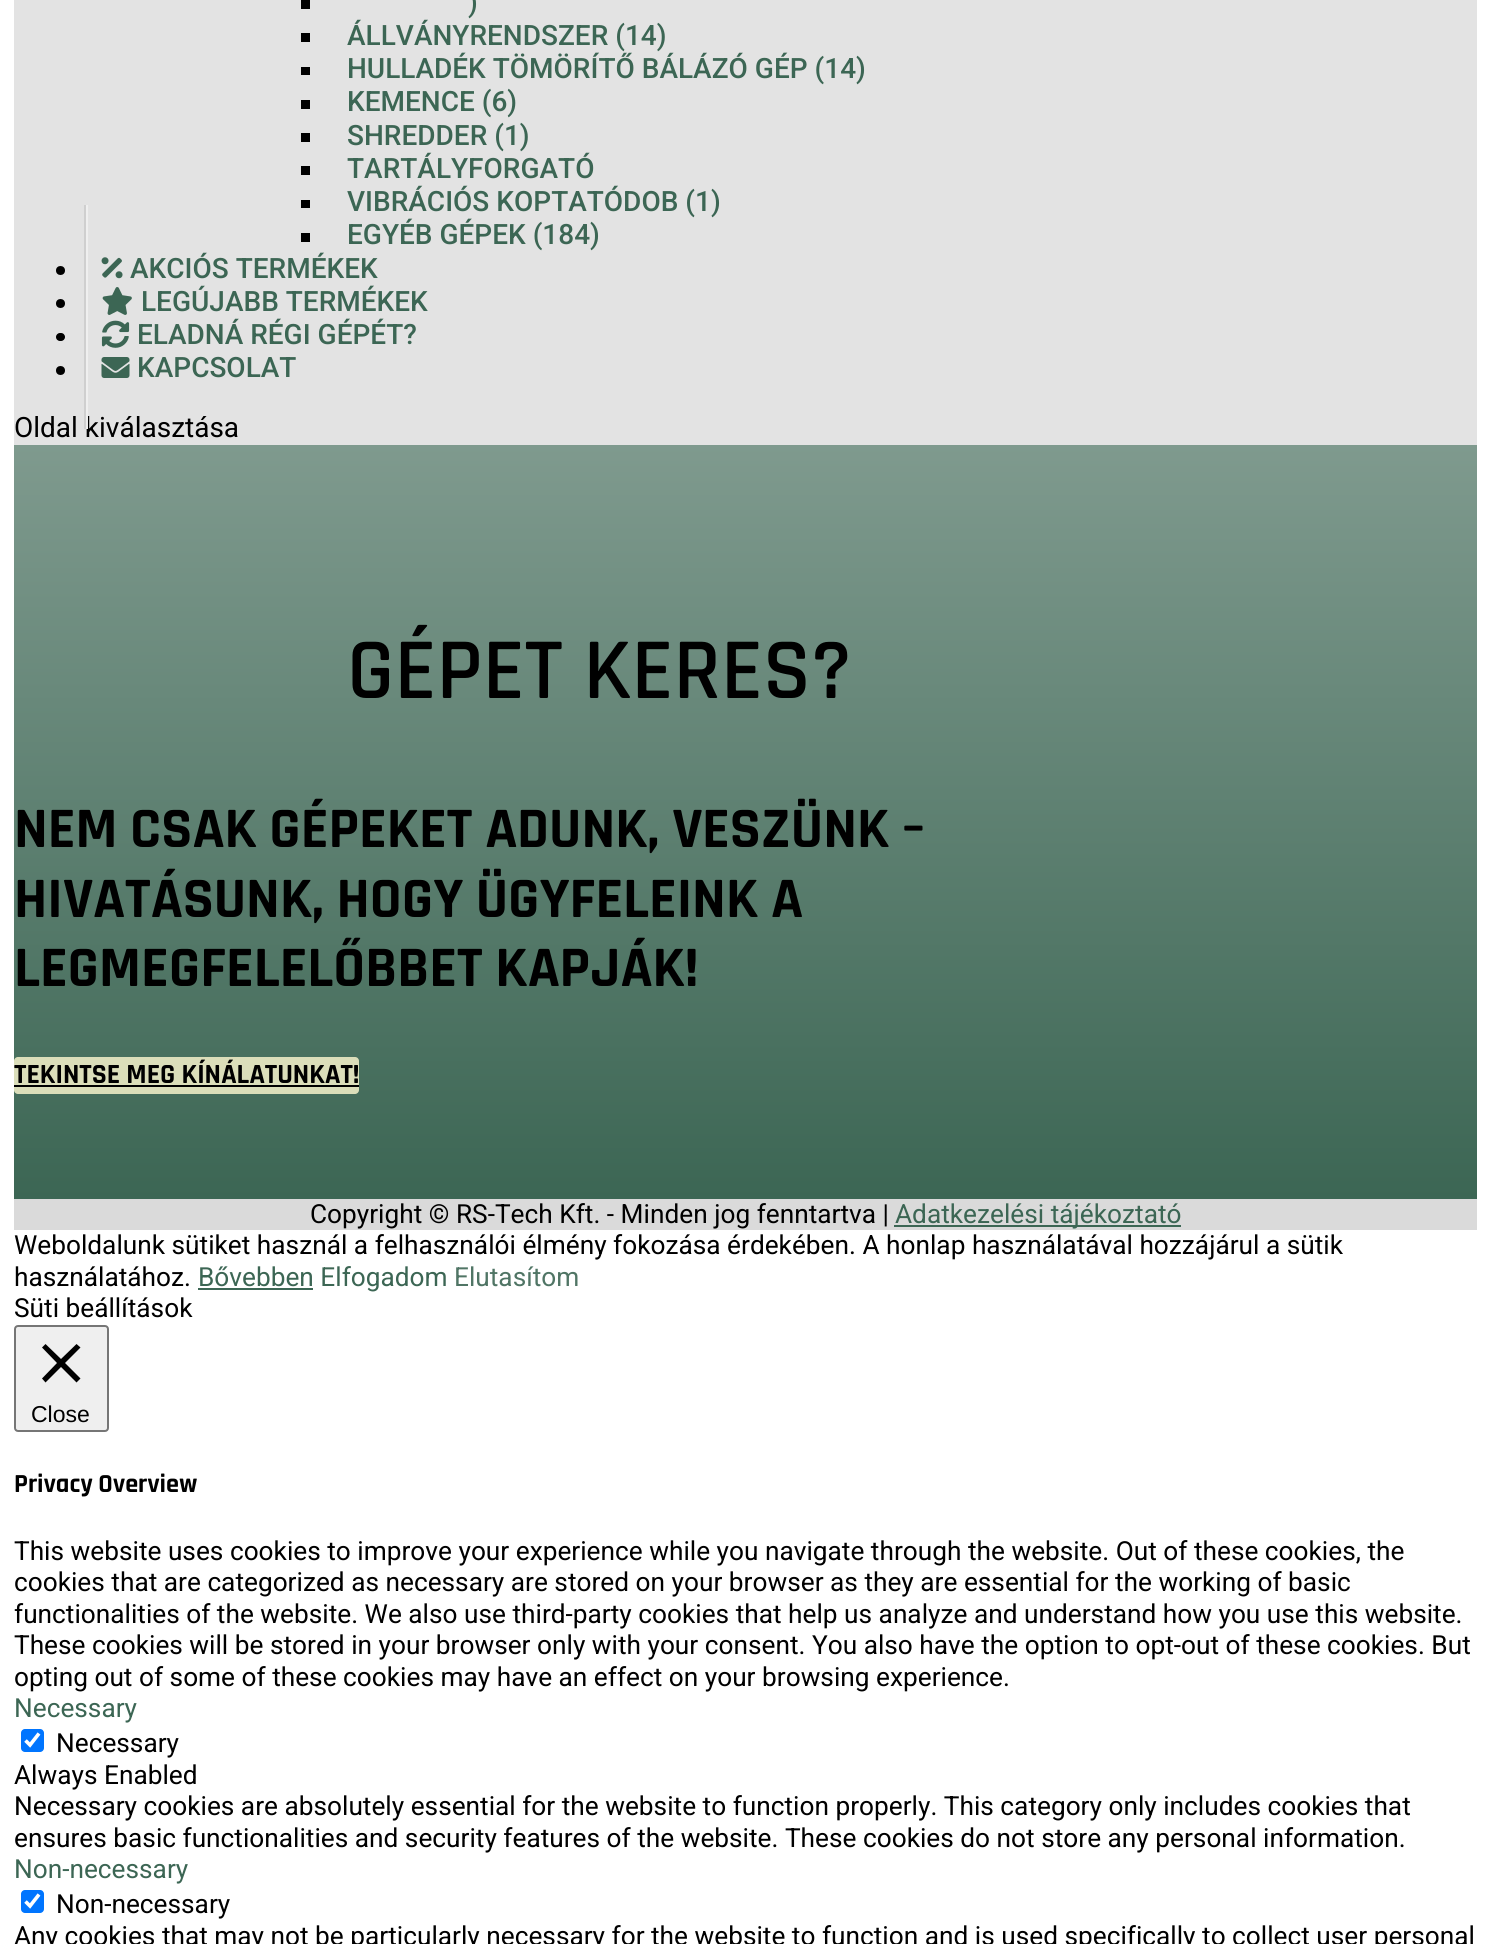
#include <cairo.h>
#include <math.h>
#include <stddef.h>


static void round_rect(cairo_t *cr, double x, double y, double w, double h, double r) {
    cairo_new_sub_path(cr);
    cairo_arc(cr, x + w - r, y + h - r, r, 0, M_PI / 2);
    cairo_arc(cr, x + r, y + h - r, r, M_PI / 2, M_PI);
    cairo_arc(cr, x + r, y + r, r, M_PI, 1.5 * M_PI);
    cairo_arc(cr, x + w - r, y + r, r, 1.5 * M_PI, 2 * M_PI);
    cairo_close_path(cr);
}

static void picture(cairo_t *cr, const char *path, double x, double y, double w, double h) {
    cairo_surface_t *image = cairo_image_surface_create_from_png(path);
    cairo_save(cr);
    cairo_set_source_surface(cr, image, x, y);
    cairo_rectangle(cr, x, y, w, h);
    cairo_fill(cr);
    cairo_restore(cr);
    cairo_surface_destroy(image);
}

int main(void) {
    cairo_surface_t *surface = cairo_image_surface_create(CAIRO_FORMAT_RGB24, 1491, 1944);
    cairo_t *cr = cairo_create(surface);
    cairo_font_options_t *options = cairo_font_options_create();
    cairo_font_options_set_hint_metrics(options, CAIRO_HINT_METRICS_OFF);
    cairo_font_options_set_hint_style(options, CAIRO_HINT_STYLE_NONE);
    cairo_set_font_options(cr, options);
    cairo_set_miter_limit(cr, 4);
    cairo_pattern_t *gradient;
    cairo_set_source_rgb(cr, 1, 1, 1);
    cairo_paint(cr);
    cairo_set_source_rgb(cr, 0.89, 0.89, 0.89);
    cairo_rectangle(cr, 14, 0, 1463, 445);
    cairo_fill(cr);
    cairo_set_source_rgb(cr, 0, 0, 0);
    cairo_rectangle(cr, 301, 0, 9, 9);
    cairo_fill(cr);
    cairo_select_font_face(cr, "Roboto Medium", CAIRO_FONT_SLANT_NORMAL, CAIRO_FONT_WEIGHT_NORMAL);
    cairo_set_font_size(cr, 28);
    cairo_set_source_rgb(cr, 0.235, 0.4, 0.329);
    cairo_move_to(cr, 468, 12);
    cairo_show_text(cr, ")");
    cairo_set_source_rgb(cr, 0, 0, 0);
    cairo_rectangle(cr, 301, 33, 9, 9);
    cairo_fill(cr);
    cairo_set_source_rgb(cr, 0.235, 0.4, 0.329);
    cairo_move_to(cr, 347, 45);
    cairo_show_text(cr, "ÁLLVÁNYRENDSZER (14)");
    cairo_set_source_rgb(cr, 0, 0, 0);
    cairo_rectangle(cr, 301, 67, 9, 8);
    cairo_fill(cr);
    cairo_set_source_rgb(cr, 0.235, 0.4, 0.329);
    cairo_move_to(cr, 347, 78);
    cairo_show_text(cr, "HULLADÉK TÖMÖRÍTŐ BÁLÁZÓ GÉP (14)");
    cairo_set_source_rgb(cr, 0, 0, 0);
    cairo_rectangle(cr, 301, 100, 9, 9);
    cairo_fill(cr);
    cairo_set_source_rgb(cr, 0.235, 0.4, 0.329);
    cairo_move_to(cr, 347, 111);
    cairo_show_text(cr, "KEMENCE (6)");
    cairo_set_source_rgb(cr, 0, 0, 0);
    cairo_rectangle(cr, 301, 133, 9, 9);
    cairo_fill(cr);
    cairo_set_source_rgb(cr, 0.235, 0.4, 0.329);
    cairo_move_to(cr, 347, 145);
    cairo_show_text(cr, "SHREDDER (1)");
    cairo_set_source_rgb(cr, 0, 0, 0);
    cairo_rectangle(cr, 301, 166, 9, 9);
    cairo_fill(cr);
    cairo_set_source_rgb(cr, 0.235, 0.4, 0.329);
    cairo_move_to(cr, 347, 178);
    cairo_show_text(cr, "TARTÁLYFORGATÓ");
    cairo_set_source_rgb(cr, 0, 0, 0);
    cairo_rectangle(cr, 301, 200, 9, 8);
    cairo_fill(cr);
    cairo_set_source_rgb(cr, 0.235, 0.4, 0.329);
    cairo_move_to(cr, 347, 211);
    cairo_show_text(cr, "VIBRÁCIÓS KOPTATÓDOB (1)");
    cairo_set_source_rgb(cr, 0, 0, 0);
    cairo_rectangle(cr, 301, 233, 9, 9);
    cairo_fill(cr);
    cairo_set_source_rgb(cr, 0.235, 0.4, 0.329);
    cairo_move_to(cr, 347, 244);
    cairo_show_text(cr, "EGYÉB GÉPEK (184)");
    cairo_set_source_rgb(cr, 0, 0, 0);
    cairo_new_path(cr);
    cairo_arc(cr, 60.5, 270.5, 4.5, 0, 2 * M_PI);
    cairo_fill(cr);
    cairo_select_font_face(cr, "Roboto", CAIRO_FONT_SLANT_NORMAL, CAIRO_FONT_WEIGHT_NORMAL);
    cairo_move_to(cr, 14, 437);
    cairo_show_text(cr, "Oldal kiválasztása");
    cairo_set_source_rgb(cr, 0.937, 0.937, 0.937);
    cairo_rectangle(cr, 86, 205, 2, 224);
    cairo_fill(cr);
    cairo_set_source_rgb(cr, 0.812, 0.812, 0.812);
    cairo_rectangle(cr, 84, 205, 2, 224);
    cairo_fill(cr);
    picture(cr, "img1.png", 101, 257, 22, 22);
    cairo_select_font_face(cr, "Roboto Medium", CAIRO_FONT_SLANT_NORMAL, CAIRO_FONT_WEIGHT_NORMAL);
    cairo_set_source_rgb(cr, 0.235, 0.4, 0.329);
    cairo_move_to(cr, 130, 278);
    cairo_show_text(cr, "AKCIÓS TERMÉKEK");
    cairo_set_source_rgb(cr, 0, 0, 0);
    cairo_new_path(cr);
    cairo_arc(cr, 60.5, 303.5, 4.5, 0, 2 * M_PI);
    cairo_fill(cr);
    picture(cr, "img2.png", 102, 287, 30, 28);
    cairo_set_source_rgb(cr, 0.235, 0.4, 0.329);
    cairo_move_to(cr, 141, 311);
    cairo_show_text(cr, "LEGÚJABB TERMÉKEK");
    cairo_set_source_rgb(cr, 0, 0, 0);
    round_rect(cr, 56, 333, 9, 8, 4);
    cairo_fill(cr);
    picture(cr, "img3.png", 101, 320, 29, 28);
    cairo_set_source_rgb(cr, 0.235, 0.4, 0.329);
    cairo_move_to(cr, 137, 344);
    cairo_show_text(cr, "ELADNÁ RÉGI GÉPÉT?");
    cairo_set_source_rgb(cr, 0, 0, 0);
    cairo_new_path(cr);
    cairo_arc(cr, 60.5, 370.5, 4.5, 0, 2 * M_PI);
    cairo_fill(cr);
    picture(cr, "img4.png", 101, 357, 29, 21);
    cairo_set_source_rgb(cr, 0.235, 0.4, 0.329);
    cairo_move_to(cr, 137, 377);
    cairo_show_text(cr, "KAPCSOLAT");
    gradient = cairo_pattern_create_linear(746, 444, 746, 1199);
    cairo_pattern_add_color_stop_rgba(gradient, 0, 0.498, 0.604, 0.557, 1);
    cairo_pattern_add_color_stop_rgba(gradient, 1, 0.235, 0.4, 0.329, 1);
    cairo_set_source(cr, gradient);
    cairo_pattern_destroy(gradient);
    cairo_rectangle(cr, 14, 445, 1463, 754);
    cairo_fill(cr);
    cairo_select_font_face(cr, "Rajdhani SemiBold", CAIRO_FONT_SLANT_NORMAL, CAIRO_FONT_WEIGHT_NORMAL);
    cairo_set_font_size(cr, 87.5);
    cairo_set_source_rgb(cr, 0, 0, 0);
    cairo_move_to(cr, 347, 698);
    cairo_show_text(cr, "GÉPET KERES?");
    cairo_select_font_face(cr, "Rajdhani", CAIRO_FONT_SLANT_NORMAL, CAIRO_FONT_WEIGHT_BOLD);
    cairo_set_font_size(cr, 57.75);
    cairo_move_to(cr, 14, 847);
    cairo_show_text(cr, "NEM CSAK GÉPEKET ADUNK, VESZÜNK –");
    cairo_move_to(cr, 14, 917);
    cairo_show_text(cr, "HIVATÁSUNK, HOGY ÜGYFELEINK A");
    cairo_move_to(cr, 14, 986);
    cairo_show_text(cr, "LEGMEGFELELŐBBET KAPJÁK!");
    cairo_set_source_rgb(cr, 0.859, 0.871, 0.729);
    round_rect(cr, 14, 1057, 345, 37, 4);
    cairo_fill(cr);
    cairo_set_font_size(cr, 28);
    cairo_set_source_rgb(cr, 0, 0, 0);
    cairo_move_to(cr, 14, 1083);
    cairo_show_text(cr, "TEKINTSE MEG KÍNÁLATUNKAT!");
    cairo_rectangle(cr, 14, 1085, 345, 2);
    cairo_fill(cr);
    cairo_set_source_rgb(cr, 0.855, 0.855, 0.855);
    cairo_rectangle(cr, 14, 1199, 1463, 31);
    cairo_fill(cr);
    cairo_select_font_face(cr, "Roboto", CAIRO_FONT_SLANT_NORMAL, CAIRO_FONT_WEIGHT_NORMAL);
    cairo_set_font_size(cr, 26.25);
    cairo_set_source_rgb(cr, 0, 0, 0);
    cairo_move_to(cr, 310, 1223);
    cairo_show_text(cr, "Copyright © RS-Tech Kft. - Minden jog fenntartva |");
    cairo_set_source_rgb(cr, 0.235, 0.4, 0.329);
    cairo_rectangle(cr, 894, 1225, 287, 2);
    cairo_fill(cr);
    cairo_move_to(cr, 895, 1223);
    cairo_show_text(cr, "Adatkezelési tájékoztató");
    cairo_set_source_rgb(cr, 0, 0, 0);
    cairo_move_to(cr, 14, 1254);
    cairo_show_text(cr, "Weboldalunk sütiket használ a felhasználói élmény fokozása érdekében. A honlap használatával hozzájárul a sütik");
    cairo_move_to(cr, 14, 1286);
    cairo_show_text(cr, "használatához.");
    cairo_set_source_rgb(cr, 0.235, 0.4, 0.329);
    cairo_rectangle(cr, 198, 1288, 115, 2);
    cairo_fill(cr);
    cairo_move_to(cr, 198, 1286);
    cairo_show_text(cr, "Bővebben Elfogadom");
    cairo_set_source_rgb(cr, 0.314, 0.459, 0.396);
    cairo_move_to(cr, 454, 1286);
    cairo_show_text(cr, "Elutasítom");
    cairo_set_source_rgb(cr, 0, 0, 0);
    cairo_move_to(cr, 14, 1317);
    cairo_show_text(cr, "Süti beállítások");
    cairo_set_source_rgb(cr, 0.937, 0.937, 0.937);
    round_rect(cr, 15, 1326, 93, 105, 3);
    cairo_fill_preserve(cr);
    cairo_set_source_rgb(cr, 0.463, 0.463, 0.463);
    cairo_stroke(cr);
    cairo_set_source_rgb(cr, 0, 0, 0);
    cairo_new_path(cr);
    cairo_move_to(cr, 80.5, 1347.5);
    cairo_line_to(cr, 76.5, 1344);
    cairo_line_to(cr, 61, 1359);
    cairo_line_to(cr, 45.5, 1344);
    cairo_line_to(cr, 42, 1347.5);
    cairo_line_to(cr, 57, 1363);
    cairo_line_to(cr, 42, 1378.5);
    cairo_line_to(cr, 45.5, 1382.5);
    cairo_line_to(cr, 61, 1367);
    cairo_line_to(cr, 76.5, 1382.5);
    cairo_line_to(cr, 80.5, 1378.5);
    cairo_line_to(cr, 65, 1363);
    cairo_close_path(cr);
    cairo_fill(cr);
    cairo_select_font_face(cr, "Liberation Sans", CAIRO_FONT_SLANT_NORMAL, CAIRO_FONT_WEIGHT_NORMAL);
    cairo_set_font_size(cr, 23);
    cairo_move_to(cr, 31, 1422);
    cairo_show_text(cr, "Close");
    cairo_select_font_face(cr, "Rajdhani", CAIRO_FONT_SLANT_NORMAL, CAIRO_FONT_WEIGHT_BOLD);
    cairo_set_font_size(cr, 26.25);
    cairo_move_to(cr, 14, 1492);
    cairo_show_text(cr, "Privacy Overview");
    cairo_select_font_face(cr, "Roboto", CAIRO_FONT_SLANT_NORMAL, CAIRO_FONT_WEIGHT_NORMAL);
    cairo_move_to(cr, 14, 1560);
    cairo_show_text(cr, "This website uses cookies to improve your experience while you navigate through the website. Out of these cookies, the");
    cairo_move_to(cr, 14, 1591);
    cairo_show_text(cr, "cookies that are categorized as necessary are stored on your browser as they are essential for the working of basic");
    cairo_move_to(cr, 14, 1623);
    cairo_show_text(cr, "functionalities of the website. We also use third-party cookies that help us analyze and understand how you use this website.");
    cairo_move_to(cr, 14, 1654);
    cairo_show_text(cr, "These cookies will be stored in your browser only with your consent. You also have the option to opt-out of these cookies. But");
    cairo_move_to(cr, 14, 1686);
    cairo_show_text(cr, "opting out of some of these cookies may have an effect on your browsing experience.");
    cairo_set_source_rgb(cr, 0.235, 0.4, 0.329);
    cairo_move_to(cr, 14, 1717);
    cairo_show_text(cr, "Necessary");
    cairo_set_source_rgb(cr, 0, 0.459, 1);
    round_rect(cr, 21, 1729, 23, 23, 4);
    cairo_fill(cr);
    cairo_new_path(cr);
    cairo_move_to(cr, 25.5, 1740.5);
    cairo_line_to(cr, 30, 1745);
    cairo_line_to(cr, 39, 1733.5);
    cairo_set_source_rgb(cr, 1, 1, 1);
    cairo_set_line_width(cr, 3.6);
    cairo_stroke(cr);
    cairo_set_source_rgb(cr, 0, 0, 0);
    cairo_move_to(cr, 56, 1752);
    cairo_show_text(cr, "Necessary");
    cairo_move_to(cr, 14, 1784);
    cairo_show_text(cr, "Always Enabled");
    cairo_move_to(cr, 14, 1815);
    cairo_show_text(cr, "Necessary cookies are absolutely essential for the website to function properly. This category only includes cookies that");
    cairo_move_to(cr, 14, 1847);
    cairo_show_text(cr, "ensures basic functionalities and security features of the website. These cookies do not store any personal information.");
    cairo_set_source_rgb(cr, 0.235, 0.4, 0.329);
    cairo_move_to(cr, 14, 1878);
    cairo_show_text(cr, "Non-necessary");
    cairo_set_source_rgb(cr, 0, 0.459, 1);
    round_rect(cr, 21, 1890, 23, 23, 4);
    cairo_fill(cr);
    cairo_new_path(cr);
    cairo_move_to(cr, 25.5, 1901.5);
    cairo_line_to(cr, 30, 1906);
    cairo_line_to(cr, 39, 1894.5);
    cairo_set_source_rgb(cr, 1, 1, 1);
    cairo_stroke(cr);
    cairo_set_source_rgb(cr, 0, 0, 0);
    cairo_move_to(cr, 56, 1913);
    cairo_show_text(cr, "Non-necessary");
    cairo_move_to(cr, 14, 1945);
    cairo_show_text(cr, "Any cookies that may not be particularly necessary for the website to function and is used specifically to collect user personal");
    cairo_surface_write_to_png(surface, "page.png");
    cairo_font_options_destroy(options);
    cairo_destroy(cr);
    cairo_surface_destroy(surface);
    return 0;
}
